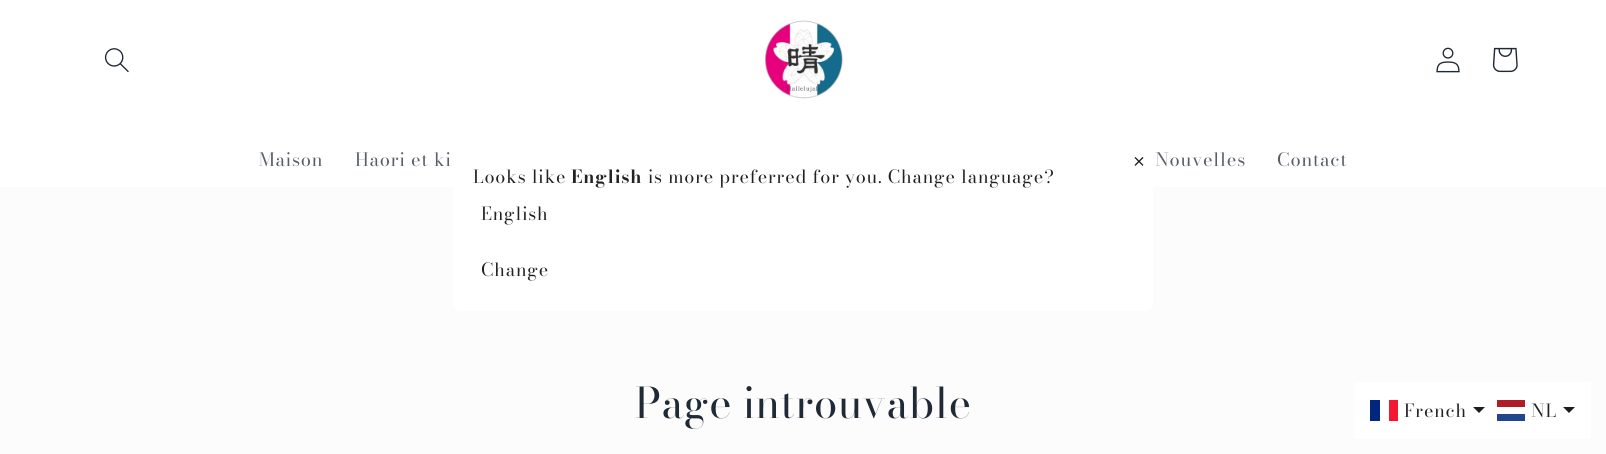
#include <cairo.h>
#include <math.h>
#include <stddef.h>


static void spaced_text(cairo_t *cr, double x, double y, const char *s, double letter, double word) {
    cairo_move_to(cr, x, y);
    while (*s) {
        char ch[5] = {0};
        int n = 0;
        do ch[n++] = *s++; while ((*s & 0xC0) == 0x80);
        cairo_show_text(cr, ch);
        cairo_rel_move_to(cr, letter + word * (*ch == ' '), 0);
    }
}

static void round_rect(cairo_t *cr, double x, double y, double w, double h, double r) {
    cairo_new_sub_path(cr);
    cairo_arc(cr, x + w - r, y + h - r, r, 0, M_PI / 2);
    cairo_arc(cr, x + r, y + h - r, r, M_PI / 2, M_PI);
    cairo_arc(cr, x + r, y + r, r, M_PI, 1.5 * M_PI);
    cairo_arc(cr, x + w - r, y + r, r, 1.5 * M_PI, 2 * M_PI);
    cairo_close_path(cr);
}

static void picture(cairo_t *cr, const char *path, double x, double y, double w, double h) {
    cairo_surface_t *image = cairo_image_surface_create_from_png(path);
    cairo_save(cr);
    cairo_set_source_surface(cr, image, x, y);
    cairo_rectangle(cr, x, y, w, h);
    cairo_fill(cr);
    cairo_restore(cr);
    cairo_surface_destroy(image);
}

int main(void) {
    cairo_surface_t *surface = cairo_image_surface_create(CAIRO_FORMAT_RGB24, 1606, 454);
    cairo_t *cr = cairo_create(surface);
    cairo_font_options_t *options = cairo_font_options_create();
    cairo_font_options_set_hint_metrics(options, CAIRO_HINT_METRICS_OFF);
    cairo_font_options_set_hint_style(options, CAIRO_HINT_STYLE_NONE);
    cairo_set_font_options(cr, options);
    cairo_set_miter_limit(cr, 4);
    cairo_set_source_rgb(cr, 0.988, 0.988, 0.988);
    cairo_paint(cr);
    cairo_set_source_rgb(cr, 1, 1, 1);
    cairo_rectangle(cr, 0, 0, 1606, 187);
    cairo_fill(cr);
    picture(cr, "img1.png", 104, 48, 25, 25);
    picture(cr, "img2.png", 765, 20, 78, 79);
    picture(cr, "img3.png", 1436, 47, 24, 26);
    picture(cr, "img4.png", 1492, 47, 26, 26);
    cairo_select_font_face(cr, "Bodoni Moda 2", CAIRO_FONT_SLANT_NORMAL, CAIRO_FONT_WEIGHT_NORMAL);
    cairo_set_font_size(cr, 18.25);
    cairo_set_source_rgb(cr, 0.345, 0.373, 0.408);
    spaced_text(cr, 259, 166, "Maison", 0.8, 0);
    spaced_text(cr, 355, 166, "Haori et ki", 0.8, 0);
    spaced_text(cr, 1155, 166, "Nouvelles", 0.8, 0);
    spaced_text(cr, 1277, 166, "Contact", 0.8, 0);
    cairo_set_source_rgb(cr, 1, 1, 1);
    round_rect(cr, 453, 142, 700, 169, 8);
    cairo_fill(cr);
    picture(cr, "img5.png", 1134, 157, 10, 9);
    cairo_select_font_face(cr, "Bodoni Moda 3", CAIRO_FONT_SLANT_NORMAL, CAIRO_FONT_WEIGHT_NORMAL);
    cairo_set_font_size(cr, 18);
    cairo_set_source_rgb(cr, 0.125, 0.133, 0.137);
    spaced_text(cr, 473, 183, "Looks like", 0.8, 0);
    cairo_select_font_face(cr, "Bodoni Moda", CAIRO_FONT_SLANT_NORMAL, CAIRO_FONT_WEIGHT_BOLD);
    spaced_text(cr, 571, 183, "English", 0.8, 0);
    cairo_select_font_face(cr, "Bodoni Moda 3", CAIRO_FONT_SLANT_NORMAL, CAIRO_FONT_WEIGHT_NORMAL);
    spaced_text(cr, 648, 183, "is more preferred for you. Change language?", 0.8, 0);
    spaced_text(cr, 481, 220, "English", 0.8, 0);
    spaced_text(cr, 481, 276, "Change", 0.8, 0);
    cairo_select_font_face(cr, "Bodoni Moda", CAIRO_FONT_SLANT_NORMAL, CAIRO_FONT_WEIGHT_NORMAL);
    cairo_set_font_size(cr, 42);
    cairo_set_source_rgb(cr, 0.125, 0.165, 0.212);
    spaced_text(cr, 635, 418, "Page introuvable", 0.6, 0);
    cairo_set_source_rgb(cr, 1, 1, 1);
    cairo_rectangle(cr, 1354, 382, 237, 57);
    cairo_fill(cr);
    cairo_set_source_rgb(cr, 0, 0.149, 0.498);
    cairo_rectangle(cr, 1370, 400, 10, 21);
    cairo_fill(cr);
    cairo_set_source_rgb(cr, 0.953, 0.094, 0.188);
    cairo_rectangle(cr, 1389, 400, 9, 21);
    cairo_fill(cr);
    cairo_select_font_face(cr, "Bodoni Moda 3", CAIRO_FONT_SLANT_NORMAL, CAIRO_FONT_WEIGHT_NORMAL);
    cairo_set_font_size(cr, 18);
    cairo_set_source_rgb(cr, 0.125, 0.133, 0.137);
    spaced_text(cr, 1404, 417, "French", 0.8, 0);
    cairo_set_source_rgb(cr, 0.114, 0.114, 0.114);
    cairo_new_path(cr);
    cairo_move_to(cr, 1473, 407);
    cairo_line_to(cr, 1485, 407);
    cairo_line_to(cr, 1479, 413);
    cairo_close_path(cr);
    cairo_fill(cr);
    cairo_set_source_rgb(cr, 0.129, 0.275, 0.545);
    cairo_rectangle(cr, 1497, 414, 28, 7);
    cairo_fill(cr);
    cairo_set_source_rgb(cr, 0.682, 0.11, 0.157);
    cairo_rectangle(cr, 1497, 400, 28, 7);
    cairo_fill(cr);
    cairo_set_source_rgb(cr, 0.125, 0.133, 0.137);
    spaced_text(cr, 1531, 417, "NL", 0.8, 0);
    cairo_set_source_rgb(cr, 0.114, 0.114, 0.114);
    cairo_new_path(cr);
    cairo_move_to(cr, 1563, 407);
    cairo_line_to(cr, 1575, 407);
    cairo_line_to(cr, 1569, 413);
    cairo_close_path(cr);
    cairo_fill(cr);
    cairo_surface_write_to_png(surface, "page.png");
    cairo_font_options_destroy(options);
    cairo_destroy(cr);
    cairo_surface_destroy(surface);
    return 0;
}
